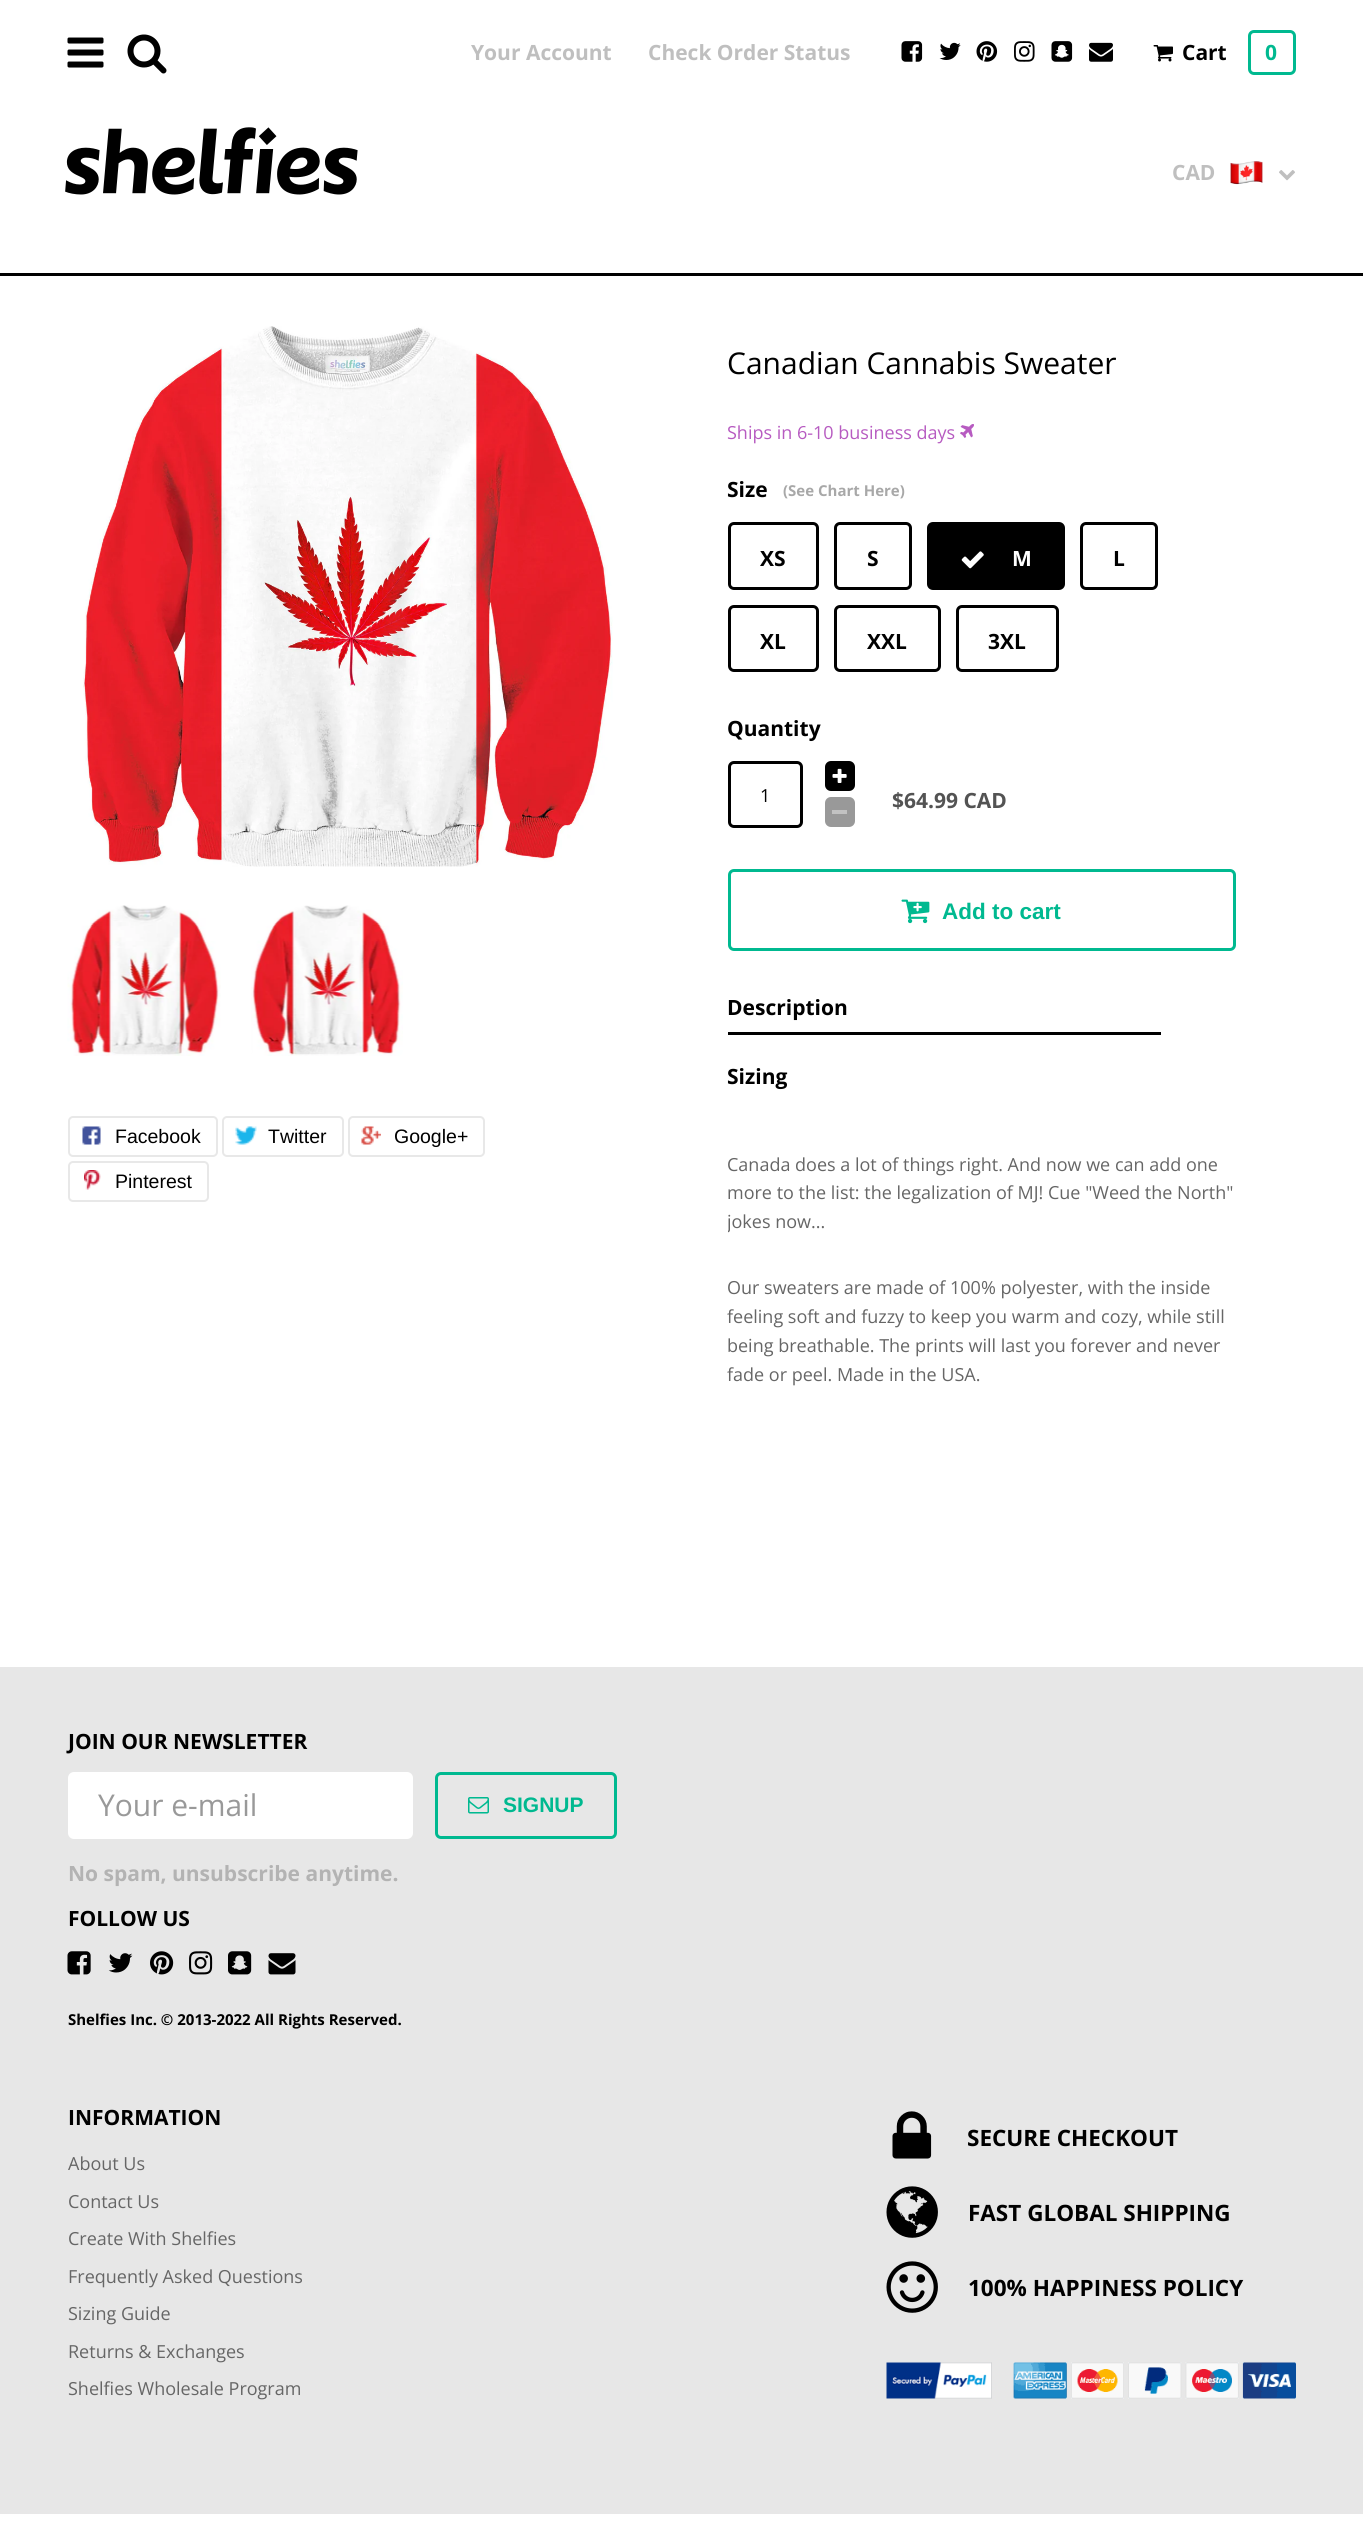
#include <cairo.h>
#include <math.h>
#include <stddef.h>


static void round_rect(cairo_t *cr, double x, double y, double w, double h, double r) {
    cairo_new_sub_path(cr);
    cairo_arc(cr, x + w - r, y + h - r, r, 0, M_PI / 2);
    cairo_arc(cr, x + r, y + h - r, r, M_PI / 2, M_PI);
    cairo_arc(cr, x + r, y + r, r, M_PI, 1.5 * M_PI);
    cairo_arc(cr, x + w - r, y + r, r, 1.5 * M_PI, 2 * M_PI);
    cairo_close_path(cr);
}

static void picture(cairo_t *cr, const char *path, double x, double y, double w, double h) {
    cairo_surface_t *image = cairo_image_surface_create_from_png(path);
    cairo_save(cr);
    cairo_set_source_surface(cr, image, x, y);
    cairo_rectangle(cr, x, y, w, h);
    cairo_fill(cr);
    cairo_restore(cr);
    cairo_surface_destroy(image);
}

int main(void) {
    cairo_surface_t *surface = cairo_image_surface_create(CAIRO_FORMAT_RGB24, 1363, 2529);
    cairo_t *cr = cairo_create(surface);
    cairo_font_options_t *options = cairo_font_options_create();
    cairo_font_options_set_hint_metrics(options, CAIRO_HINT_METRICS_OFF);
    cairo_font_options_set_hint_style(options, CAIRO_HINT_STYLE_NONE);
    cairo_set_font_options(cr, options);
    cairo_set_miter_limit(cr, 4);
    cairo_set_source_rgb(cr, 1, 1, 1);
    cairo_paint(cr);
    cairo_select_font_face(cr, "Open Sans", CAIRO_FONT_SLANT_NORMAL, CAIRO_FONT_WEIGHT_BOLD);
    cairo_set_font_size(cr, 21);
    cairo_set_source_rgb(cr, 0.749, 0.749, 0.749);
    cairo_move_to(cr, 471, 60);
    cairo_show_text(cr, "Your Account");
    cairo_move_to(cr, 648, 60);
    cairo_show_text(cr, "Check Order Status");
    picture(cr, "img1.png", 901, 41, 22, 21);
    picture(cr, "img2.png", 939, 42, 22, 18);
    picture(cr, "img3.png", 976, 41, 22, 21);
    picture(cr, "img4.png", 1014, 41, 21, 21);
    picture(cr, "img5.png", 1051, 41, 22, 21);
    picture(cr, "img6.png", 1089, 42, 24, 20);
    picture(cr, "img7.png", 1153, 45, 20, 17);
    cairo_set_source_rgb(cr, 0, 0, 0);
    cairo_move_to(cr, 1182, 60);
    cairo_show_text(cr, "Cart");
    round_rect(cr, 1249.5, 31.5, 45, 42, 4.5);
    cairo_set_source_rgb(cr, 0, 0.725, 0.565);
    cairo_set_line_width(cr, 3);
    cairo_stroke(cr);
    cairo_move_to(cr, 1265, 60);
    cairo_show_text(cr, "0");
    picture(cr, "img8.png", 67, 37, 37, 31);
    picture(cr, "img9.png", 127, 34, 40, 40);
    picture(cr, "img10.png", 65, 127, 293, 68);
    cairo_set_source_rgb(cr, 0.749, 0.749, 0.749);
    cairo_move_to(cr, 1172, 180);
    cairo_show_text(cr, "CAD");
    picture(cr, "img11.png", 1230, 161, 33, 24);
    picture(cr, "img12.png", 1279, 170, 16, 11);
    cairo_set_source_rgb(cr, 0, 0, 0);
    cairo_rectangle(cr, 0, 273, 1363, 3);
    cairo_fill(cr);
    picture(cr, "img13.png", 83, 326, 530, 541);
    picture(cr, "img14.png", 67, 905, 154, 151);
    picture(cr, "img15.png", 251, 905, 152, 151);
    round_rect(cr, 69, 1117, 148, 39, 4);
    cairo_set_source_rgb(cr, 0.91, 0.91, 0.91);
    cairo_set_line_width(cr, 2);
    cairo_stroke(cr);
    picture(cr, "img16.png", 82, 1126, 19, 19);
    cairo_select_font_face(cr, "Liberation Sans", CAIRO_FONT_SLANT_NORMAL, CAIRO_FONT_WEIGHT_NORMAL);
    cairo_set_font_size(cr, 19.5);
    cairo_set_source_rgb(cr, 0, 0, 0);
    cairo_move_to(cr, 115, 1143);
    cairo_show_text(cr, "Facebook");
    round_rect(cr, 223, 1117, 120, 39, 4);
    cairo_set_source_rgb(cr, 0.91, 0.91, 0.91);
    cairo_stroke(cr);
    picture(cr, "img17.png", 235, 1126, 22, 19);
    cairo_set_source_rgb(cr, 0, 0, 0);
    cairo_move_to(cr, 268, 1143);
    cairo_show_text(cr, "Twitter");
    round_rect(cr, 349, 1117, 135, 39, 4);
    cairo_set_source_rgb(cr, 0.91, 0.91, 0.91);
    cairo_stroke(cr);
    picture(cr, "img18.png", 361, 1126, 20, 19);
    cairo_set_source_rgb(cr, 0, 0, 0);
    cairo_move_to(cr, 394, 1143);
    cairo_show_text(cr, "Google+");
    round_rect(cr, 69, 1162, 139, 39, 4);
    cairo_set_source_rgb(cr, 0.91, 0.91, 0.91);
    cairo_stroke(cr);
    picture(cr, "img19.png", 84, 1170, 17, 20);
    cairo_set_source_rgb(cr, 0, 0, 0);
    cairo_move_to(cr, 115, 1188);
    cairo_show_text(cr, "Pinterest");
    cairo_select_font_face(cr, "Open Sans", CAIRO_FONT_SLANT_NORMAL, CAIRO_FONT_WEIGHT_NORMAL);
    cairo_set_font_size(cr, 30);
    cairo_move_to(cr, 727, 374);
    cairo_show_text(cr, "Canadian Cannabis Sweater");
    cairo_set_font_size(cr, 18);
    cairo_set_source_rgb(cr, 0.718, 0.357, 0.757);
    cairo_move_to(cr, 727, 439);
    cairo_show_text(cr, "Ships in 6-10 business days");
    picture(cr, "img20.png", 960, 424, 14, 14);
    cairo_select_font_face(cr, "Open Sans", CAIRO_FONT_SLANT_NORMAL, CAIRO_FONT_WEIGHT_BOLD);
    cairo_set_font_size(cr, 21);
    cairo_set_source_rgb(cr, 0, 0, 0);
    cairo_move_to(cr, 727, 497);
    cairo_show_text(cr, "Size");
    cairo_set_font_size(cr, 15);
    cairo_set_source_rgb(cr, 0.659, 0.659, 0.659);
    cairo_move_to(cr, 783, 496);
    cairo_show_text(cr, "(See Chart Here)");
    round_rect(cr, 729.5, 523.5, 88, 65, 4.5);
    cairo_set_source_rgb(cr, 0, 0, 0);
    cairo_set_line_width(cr, 3);
    cairo_stroke(cr);
    cairo_set_font_size(cr, 21);
    cairo_move_to(cr, 760, 566);
    cairo_show_text(cr, "XS");
    round_rect(cr, 835.5, 523.5, 75, 65, 4.5);
    cairo_stroke(cr);
    cairo_move_to(cr, 867, 566);
    cairo_show_text(cr, "S");
    round_rect(cr, 928.5, 523.5, 135, 65, 4.5);
    cairo_fill_preserve(cr);
    cairo_stroke(cr);
    picture(cr, "img21.png", 961, 551, 23, 18);
    cairo_set_source_rgb(cr, 1, 1, 1);
    cairo_move_to(cr, 1012, 566);
    cairo_show_text(cr, "M");
    round_rect(cr, 1081.5, 523.5, 75, 65, 4.5);
    cairo_set_source_rgb(cr, 0, 0, 0);
    cairo_stroke(cr);
    cairo_move_to(cr, 1113, 566);
    cairo_show_text(cr, "L");
    round_rect(cr, 729.5, 606.5, 88, 64, 4.5);
    cairo_stroke(cr);
    cairo_move_to(cr, 760, 649);
    cairo_show_text(cr, "XL");
    round_rect(cr, 835.5, 606.5, 104, 64, 4.5);
    cairo_stroke(cr);
    cairo_move_to(cr, 867, 649);
    cairo_show_text(cr, "XXL");
    round_rect(cr, 957.5, 606.5, 100, 64, 4.5);
    cairo_stroke(cr);
    cairo_move_to(cr, 988, 649);
    cairo_show_text(cr, "3XL");
    cairo_move_to(cr, 727, 736);
    cairo_show_text(cr, "Quantity");
    round_rect(cr, 729.5, 762.5, 72, 64, 4.5);
    cairo_stroke(cr);
    cairo_select_font_face(cr, "Open Sans", CAIRO_FONT_SLANT_NORMAL, CAIRO_FONT_WEIGHT_NORMAL);
    cairo_set_font_size(cr, 18);
    cairo_move_to(cr, 760, 802);
    cairo_show_text(cr, "1");
    round_rect(cr, 825, 761, 30, 30, 6);
    cairo_fill(cr);
    picture(cr, "img22.png", 832, 768, 15, 15);
    cairo_set_source_rgb(cr, 0.6, 0.6, 0.6);
    round_rect(cr, 825, 797, 30, 30, 6);
    cairo_fill(cr);
    cairo_set_source_rgb(cr, 0.761, 0.761, 0.761);
    cairo_rectangle(cr, 832, 810, 15, 4);
    cairo_fill(cr);
    cairo_select_font_face(cr, "Open Sans", CAIRO_FONT_SLANT_NORMAL, CAIRO_FONT_WEIGHT_BOLD);
    cairo_set_font_size(cr, 21);
    cairo_set_source_rgb(cr, 0.325, 0.325, 0.325);
    cairo_move_to(cr, 892, 808);
    cairo_show_text(cr, "$64.99 CAD");
    round_rect(cr, 729.5, 870.5, 505, 79, 4.5);
    cairo_set_source_rgb(cr, 0, 0.725, 0.565);
    cairo_stroke(cr);
    picture(cr, "img23.png", 901, 899, 29, 25);
    cairo_select_font_face(cr, "Liberation Sans", CAIRO_FONT_SLANT_NORMAL, CAIRO_FONT_WEIGHT_BOLD);
    cairo_set_font_size(cr, 22.5);
    cairo_move_to(cr, 942, 919);
    cairo_show_text(cr, "Add to cart");
    cairo_set_source_rgb(cr, 0, 0, 0);
    cairo_rectangle(cr, 728, 1032, 433, 3);
    cairo_fill(cr);
    cairo_select_font_face(cr, "Open Sans", CAIRO_FONT_SLANT_NORMAL, CAIRO_FONT_WEIGHT_BOLD);
    cairo_set_font_size(cr, 21);
    cairo_move_to(cr, 727, 1015);
    cairo_show_text(cr, "Description");
    cairo_move_to(cr, 727, 1084);
    cairo_show_text(cr, "Sizing");
    cairo_select_font_face(cr, "Open Sans", CAIRO_FONT_SLANT_NORMAL, CAIRO_FONT_WEIGHT_NORMAL);
    cairo_set_font_size(cr, 18);
    cairo_set_source_rgb(cr, 0.4, 0.4, 0.4);
    cairo_move_to(cr, 727, 1171);
    cairo_show_text(cr, "Canada does a lot of things right. And now we can add one");
    cairo_move_to(cr, 727, 1199);
    cairo_show_text(cr, "more to the list: the legalization of MJ! Cue \"Weed the North\"");
    cairo_save(cr);
    cairo_rectangle(cr, 728, 1149, 508, 87);
    cairo_clip(cr);
    cairo_move_to(cr, 727, 1228);
    cairo_show_text(cr, "jokes now...");
    cairo_restore(cr);
    cairo_move_to(cr, 727, 1294);
    cairo_show_text(cr, "Our sweaters are made of 100% polyester, with the inside");
    cairo_move_to(cr, 727, 1323);
    cairo_show_text(cr, "feeling soft and fuzzy to keep you warm and cozy, while still");
    cairo_move_to(cr, 727, 1352);
    cairo_show_text(cr, "being breathable. The prints will last you forever and never");
    cairo_move_to(cr, 727, 1381);
    cairo_show_text(cr, "fade or peel. Made in the USA.");
    cairo_set_source_rgb(cr, 0.906, 0.906, 0.906);
    cairo_rectangle(cr, 0, 1667, 1363, 847);
    cairo_fill(cr);
    cairo_select_font_face(cr, "Open Sans", CAIRO_FONT_SLANT_NORMAL, CAIRO_FONT_WEIGHT_BOLD);
    cairo_set_font_size(cr, 21);
    cairo_set_source_rgb(cr, 0, 0, 0);
    cairo_move_to(cr, 68, 1749);
    cairo_show_text(cr, "JOIN OUR NEWSLETTER");
    cairo_set_source_rgb(cr, 1, 1, 1);
    round_rect(cr, 68, 1772, 345, 67, 6);
    cairo_fill(cr);
    cairo_select_font_face(cr, "Open Sans", CAIRO_FONT_SLANT_NORMAL, CAIRO_FONT_WEIGHT_NORMAL);
    cairo_set_font_size(cr, 30);
    cairo_set_source_rgb(cr, 0.6, 0.6, 0.6);
    cairo_move_to(cr, 98, 1816);
    cairo_show_text(cr, "Your e-mail");
    round_rect(cr, 436.5, 1773.5, 179, 64, 4.5);
    cairo_set_source_rgb(cr, 0, 0.725, 0.565);
    cairo_stroke(cr);
    picture(cr, "img24.png", 468, 1797, 21, 17);
    cairo_select_font_face(cr, "Liberation Sans", CAIRO_FONT_SLANT_NORMAL, CAIRO_FONT_WEIGHT_BOLD);
    cairo_set_font_size(cr, 21);
    cairo_move_to(cr, 503, 1812);
    cairo_show_text(cr, "SIGNUP");
    cairo_select_font_face(cr, "Open Sans", CAIRO_FONT_SLANT_NORMAL, CAIRO_FONT_WEIGHT_BOLD);
    cairo_set_source_rgb(cr, 0.702, 0.702, 0.702);
    cairo_move_to(cr, 68, 1881);
    cairo_show_text(cr, "No spam, unsubscribe anytime.");
    cairo_set_source_rgb(cr, 0, 0, 0);
    cairo_move_to(cr, 68, 1926);
    cairo_show_text(cr, "FOLLOW US");
    picture(cr, "img25.png", 67, 1951, 24, 24);
    picture(cr, "img26.png", 108, 1953, 25, 20);
    picture(cr, "img27.png", 150, 1951, 24, 24);
    picture(cr, "img28.png", 189, 1951, 24, 24);
    picture(cr, "img29.png", 228, 1951, 24, 24);
    picture(cr, "img30.png", 268, 1953, 28, 22);
    cairo_set_font_size(cr, 15);
    cairo_move_to(cr, 68, 2025);
    cairo_show_text(cr, "Shelfies Inc. © 2013-2022 All Rights Reserved.");
    cairo_set_font_size(cr, 21);
    cairo_move_to(cr, 68, 2125);
    cairo_show_text(cr, "INFORMATION");
    cairo_select_font_face(cr, "Open Sans", CAIRO_FONT_SLANT_NORMAL, CAIRO_FONT_WEIGHT_NORMAL);
    cairo_set_font_size(cr, 18);
    cairo_set_source_rgb(cr, 0.4, 0.4, 0.4);
    cairo_move_to(cr, 68, 2170);
    cairo_show_text(cr, "About Us");
    cairo_move_to(cr, 68, 2208);
    cairo_show_text(cr, "Contact Us");
    cairo_move_to(cr, 68, 2245);
    cairo_show_text(cr, "Create With Shelfies");
    cairo_move_to(cr, 68, 2283);
    cairo_show_text(cr, "Frequently Asked Questions");
    cairo_move_to(cr, 68, 2320);
    cairo_show_text(cr, "Sizing Guide");
    cairo_move_to(cr, 68, 2358);
    cairo_show_text(cr, "Returns & Exchanges");
    cairo_move_to(cr, 68, 2395);
    cairo_show_text(cr, "Shelfies Wholesale Program");
    picture(cr, "img31.png", 892, 2111, 40, 48);
    cairo_select_font_face(cr, "Open Sans", CAIRO_FONT_SLANT_NORMAL, CAIRO_FONT_WEIGHT_BOLD);
    cairo_set_font_size(cr, 22.5);
    cairo_set_source_rgb(cr, 0, 0, 0);
    cairo_move_to(cr, 967, 2146);
    cairo_show_text(cr, "SECURE CHECKOUT");
    picture(cr, "img32.png", 886, 2186, 52, 52);
    cairo_move_to(cr, 968, 2221);
    cairo_show_text(cr, "FAST GLOBAL SHIPPING");
    picture(cr, "img33.png", 886, 2261, 52, 52);
    cairo_move_to(cr, 968, 2296);
    cairo_show_text(cr, "100% HAPPINESS POLICY");
    picture(cr, "img34.png", 886, 2362, 410, 37);
    cairo_surface_write_to_png(surface, "page.png");
    cairo_font_options_destroy(options);
    cairo_destroy(cr);
    cairo_surface_destroy(surface);
    return 0;
}
